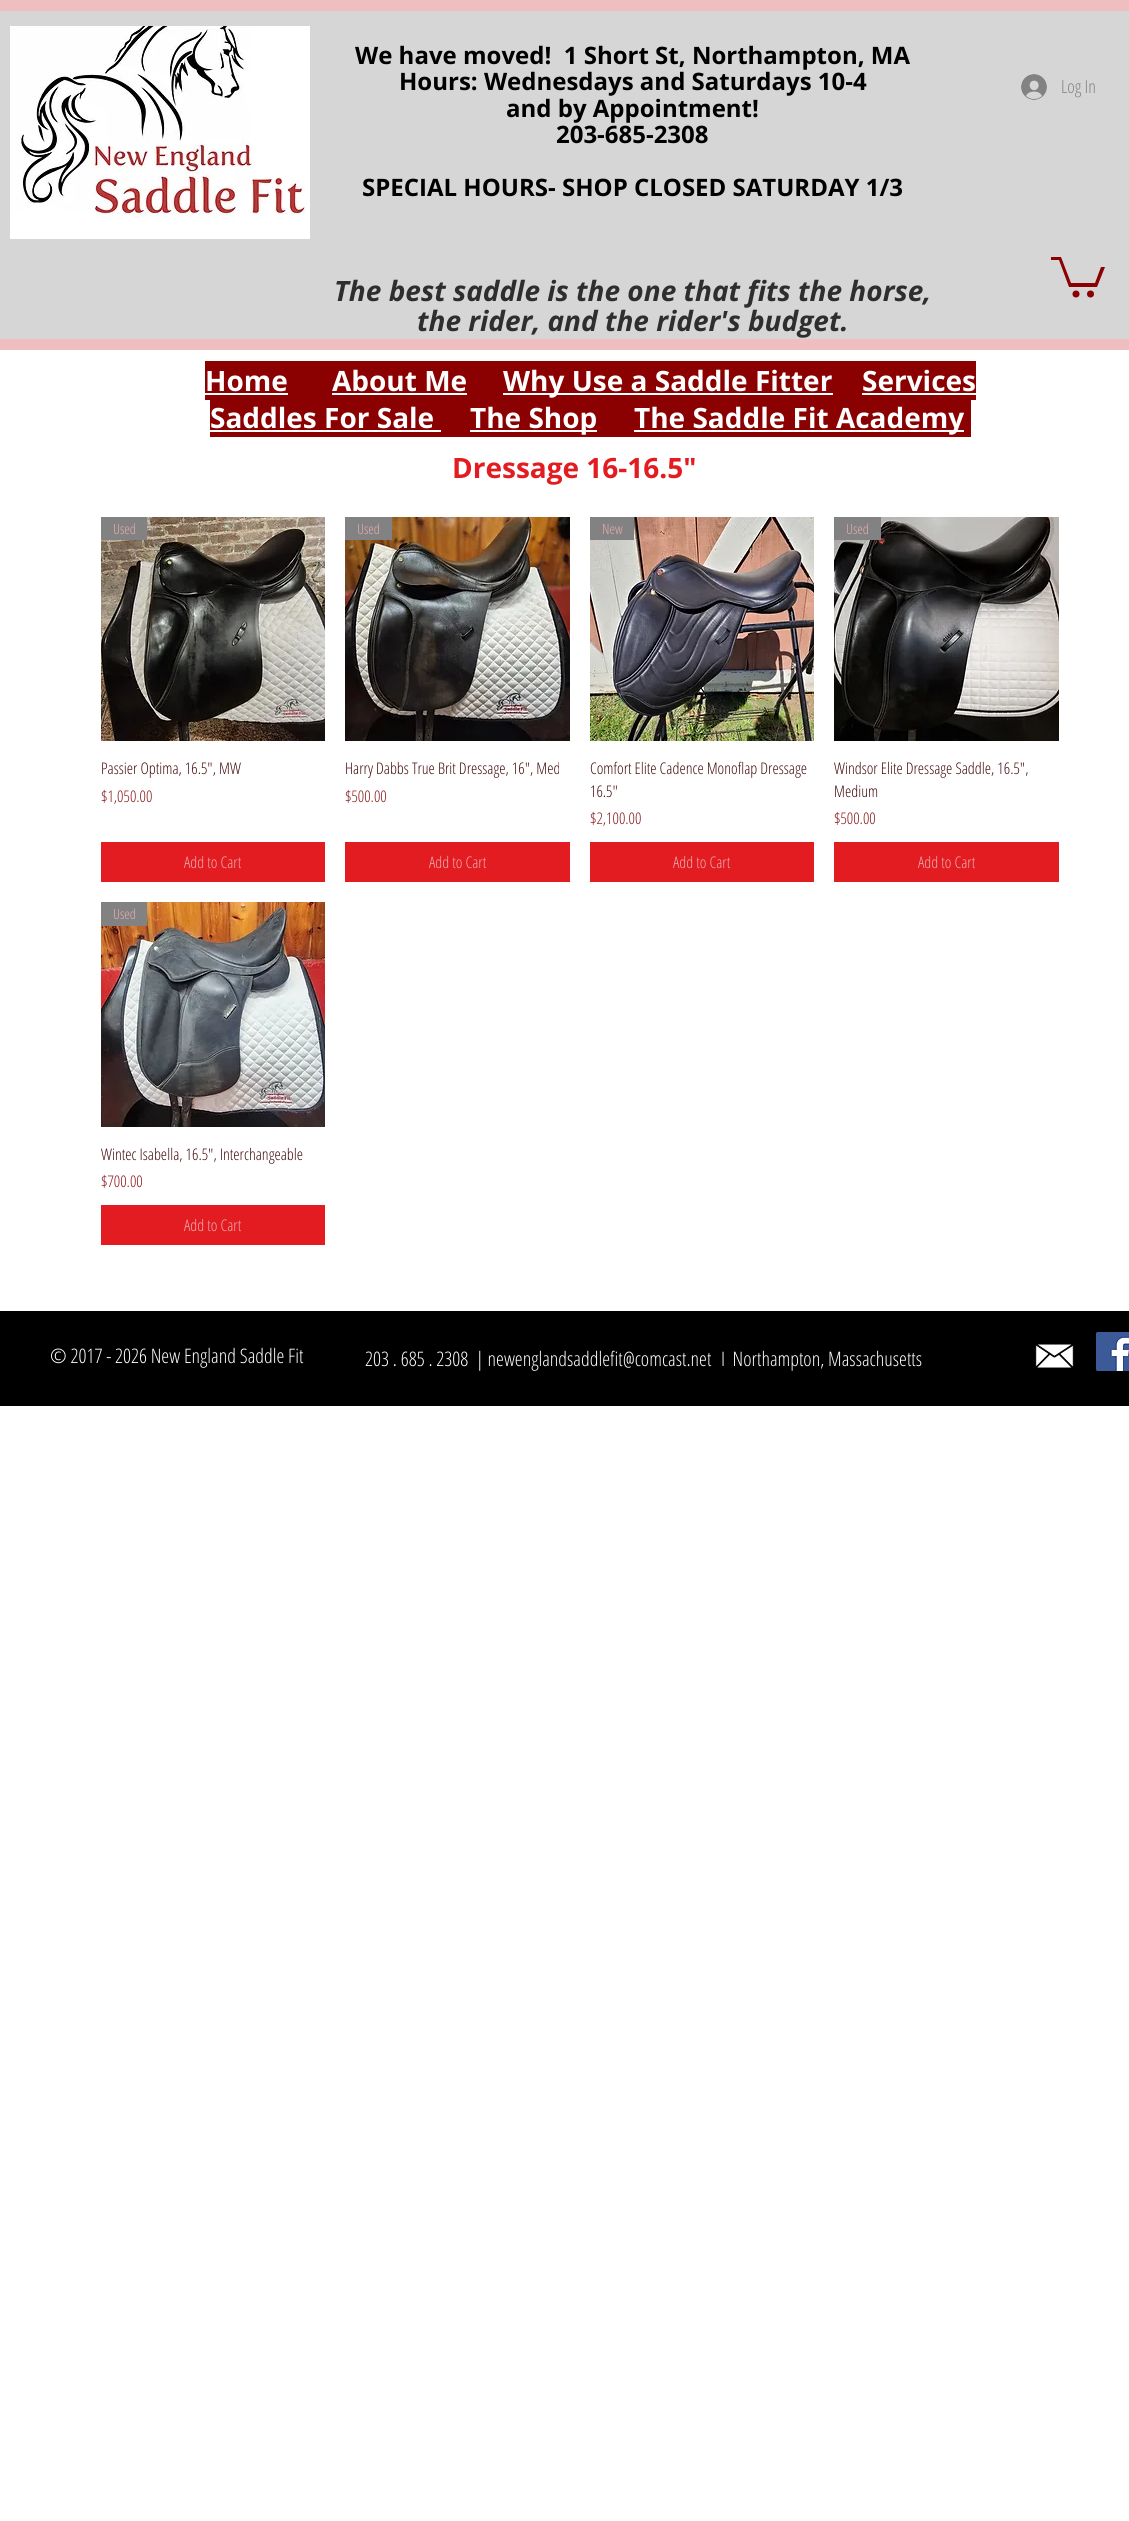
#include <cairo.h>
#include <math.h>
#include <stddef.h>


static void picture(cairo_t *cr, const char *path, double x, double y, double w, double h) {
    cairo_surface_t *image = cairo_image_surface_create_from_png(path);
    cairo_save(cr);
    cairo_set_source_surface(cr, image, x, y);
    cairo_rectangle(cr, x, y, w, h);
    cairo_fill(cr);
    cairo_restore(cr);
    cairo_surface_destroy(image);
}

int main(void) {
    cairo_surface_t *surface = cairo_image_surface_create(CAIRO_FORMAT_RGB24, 1129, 2521);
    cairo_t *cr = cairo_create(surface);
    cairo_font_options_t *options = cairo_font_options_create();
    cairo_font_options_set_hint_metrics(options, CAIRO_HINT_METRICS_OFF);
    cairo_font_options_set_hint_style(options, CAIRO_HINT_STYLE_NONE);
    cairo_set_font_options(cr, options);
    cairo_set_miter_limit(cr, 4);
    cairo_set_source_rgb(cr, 1, 1, 1);
    cairo_paint(cr);
    cairo_set_source_rgb(cr, 0.937, 0.745, 0.753);
    cairo_rectangle(cr, 0, 0, 1129, 11);
    cairo_fill(cr);
    cairo_rectangle(cr, 0, 339, 1129, 11);
    cairo_fill(cr);
    cairo_set_source_rgb(cr, 0.839, 0.839, 0.839);
    cairo_rectangle(cr, 0, 11, 1129, 328);
    cairo_fill(cr);
    picture(cr, "img1.png", 10, 26, 300, 213);
    cairo_select_font_face(cr, "Open Sans", CAIRO_FONT_SLANT_NORMAL, CAIRO_FONT_WEIGHT_BOLD);
    cairo_set_font_size(cr, 24);
    cairo_set_source_rgb(cr, 0, 0, 0);
    cairo_move_to(cr, 355, 64);
    cairo_show_text(cr, "We have moved!  1 Short St, Northampton, MA");
    cairo_move_to(cr, 399, 90);
    cairo_show_text(cr, "Hours: Wednesdays and Saturdays 10-4");
    cairo_move_to(cr, 506, 117);
    cairo_show_text(cr, "and by Appointment!");
    cairo_move_to(cr, 556, 143);
    cairo_show_text(cr, "203-685-2308");
    cairo_move_to(cr, 362, 196);
    cairo_show_text(cr, "SPECIAL HOURS- SHOP CLOSED SATURDAY 1/3");
    picture(cr, "img2.png", 1021, 74, 26, 26);
    cairo_select_font_face(cr, "Open Sans Condensed Light", CAIRO_FONT_SLANT_NORMAL, CAIRO_FONT_WEIGHT_NORMAL);
    cairo_set_font_size(cr, 18);
    cairo_set_source_rgb(cr, 0.51, 0.51, 0.51);
    cairo_move_to(cr, 1061, 93);
    cairo_show_text(cr, "Log In");
    cairo_select_font_face(cr, "Open Sans", CAIRO_FONT_SLANT_ITALIC, CAIRO_FONT_WEIGHT_BOLD);
    cairo_set_font_size(cr, 28);
    cairo_set_source_rgb(cr, 0.184, 0.18, 0.18);
    cairo_move_to(cr, 334, 301);
    cairo_show_text(cr, "The best saddle is the one that fits the horse,");
    cairo_move_to(cr, 417, 331);
    cairo_show_text(cr, "the rider, and the rider's budget.");
    cairo_set_source_rgb(cr, 0.545, 0, 0);
    cairo_new_path(cr);
    cairo_move_to(cr, 1105, 267);
    cairo_line_to(cr, 1097, 287);
    cairo_line_to(cr, 1069, 287);
    cairo_line_to(cr, 1059, 260);
    cairo_line_to(cr, 1051, 260);
    cairo_line_to(cr, 1051, 257);
    cairo_line_to(cr, 1061, 257);
    cairo_line_to(cr, 1071, 283);
    cairo_line_to(cr, 1095, 283);
    cairo_line_to(cr, 1101, 267);
    cairo_fill(cr);
    cairo_arc(cr, 1090.5, 294, 3.5, 0, 2 * M_PI);
    cairo_fill(cr);
    cairo_arc(cr, 1076, 294, 3.5, 0, 2 * M_PI);
    cairo_fill(cr);
    cairo_rectangle(cr, 205, 361, 83, 39);
    cairo_fill(cr);
    cairo_select_font_face(cr, "Open Sans", CAIRO_FONT_SLANT_NORMAL, CAIRO_FONT_WEIGHT_BOLD);
    cairo_set_source_rgb(cr, 1, 1, 1);
    cairo_move_to(cr, 205, 391);
    cairo_show_text(cr, "Home");
    cairo_rectangle(cr, 205, 393, 83, 2);
    cairo_fill(cr);
    cairo_set_source_rgb(cr, 0.545, 0, 0);
    cairo_rectangle(cr, 288, 361, 574, 37);
    cairo_fill(cr);
    cairo_set_source_rgb(cr, 1, 1, 1);
    cairo_move_to(cr, 332, 391);
    cairo_show_text(cr, "About Me");
    cairo_rectangle(cr, 332, 393, 135, 2);
    cairo_fill(cr);
    cairo_rectangle(cr, 503, 393, 330, 2);
    cairo_fill(cr);
    cairo_move_to(cr, 503, 391);
    cairo_show_text(cr, "Why Use a Saddle Fitter");
    cairo_set_source_rgb(cr, 0.545, 0, 0);
    cairo_rectangle(cr, 862, 361, 114, 39);
    cairo_fill(cr);
    cairo_set_source_rgb(cr, 1, 1, 1);
    cairo_move_to(cr, 862, 391);
    cairo_show_text(cr, "Services");
    cairo_rectangle(cr, 862, 393, 114, 2);
    cairo_fill(cr);
    cairo_set_source_rgb(cr, 0.545, 0, 0);
    cairo_rectangle(cr, 210, 398, 754, 39);
    cairo_fill(cr);
    cairo_set_source_rgb(cr, 1, 1, 1);
    cairo_move_to(cr, 210, 428);
    cairo_show_text(cr, "Saddles For Sale");
    cairo_rectangle(cr, 210, 430, 231, 2);
    cairo_fill(cr);
    cairo_rectangle(cr, 470, 430, 127, 2);
    cairo_fill(cr);
    cairo_move_to(cr, 470, 428);
    cairo_show_text(cr, "The Shop");
    cairo_rectangle(cr, 634, 430, 330, 2);
    cairo_fill(cr);
    cairo_move_to(cr, 634, 428);
    cairo_show_text(cr, "The Saddle Fit Academy");
    cairo_set_source_rgb(cr, 0.545, 0, 0);
    cairo_rectangle(cr, 964, 398, 7, 39);
    cairo_fill(cr);
    cairo_set_source_rgb(cr, 0.886, 0.11, 0.129);
    cairo_move_to(cr, 452, 478);
    cairo_show_text(cr, "Dressage 16-16.5\"");
    picture(cr, "img3.png", 101, 517, 224, 224);
    cairo_set_source_rgb(cr, 0.51, 0.51, 0.51);
    cairo_rectangle(cr, 101, 517, 46, 23);
    cairo_fill(cr);
    cairo_select_font_face(cr, "Open Sans Condensed Light", CAIRO_FONT_SLANT_NORMAL, CAIRO_FONT_WEIGHT_NORMAL);
    cairo_set_font_size(cr, 14);
    cairo_set_source_rgb(cr, 0.929, 0.678, 0.686);
    cairo_move_to(cr, 113, 534);
    cairo_show_text(cr, "Used");
    cairo_set_font_size(cr, 16);
    cairo_set_source_rgb(cr, 0.263, 0.047, 0.059);
    cairo_move_to(cr, 101, 774);
    cairo_show_text(cr, "Passier Optima, 16.5\", MW");
    cairo_set_source_rgb(cr, 0.525, 0.098, 0.114);
    cairo_move_to(cr, 101, 802);
    cairo_show_text(cr, "$1,050.00");
    cairo_set_source_rgb(cr, 0.886, 0.11, 0.129);
    cairo_rectangle(cr, 101, 842, 224, 40);
    cairo_fill(cr);
    cairo_set_source_rgb(cr, 0.929, 0.678, 0.686);
    cairo_move_to(cr, 184, 868);
    cairo_show_text(cr, "Add to Cart");
    picture(cr, "img4.png", 345, 517, 225, 224);
    cairo_set_source_rgb(cr, 0.51, 0.51, 0.51);
    cairo_rectangle(cr, 345, 517, 47, 23);
    cairo_fill(cr);
    cairo_set_font_size(cr, 14);
    cairo_set_source_rgb(cr, 0.929, 0.678, 0.686);
    cairo_move_to(cr, 357, 534);
    cairo_show_text(cr, "Used");
    cairo_set_font_size(cr, 16);
    cairo_set_source_rgb(cr, 0.263, 0.047, 0.059);
    cairo_move_to(cr, 345, 774);
    cairo_show_text(cr, "Harry Dabbs True Brit Dressage, 16\", Med");
    cairo_set_source_rgb(cr, 0.525, 0.098, 0.114);
    cairo_move_to(cr, 345, 802);
    cairo_show_text(cr, "$500.00");
    cairo_set_source_rgb(cr, 0.886, 0.11, 0.129);
    cairo_rectangle(cr, 345, 842, 225, 40);
    cairo_fill(cr);
    cairo_set_source_rgb(cr, 0.929, 0.678, 0.686);
    cairo_move_to(cr, 429, 868);
    cairo_show_text(cr, "Add to Cart");
    picture(cr, "img5.png", 590, 517, 224, 224);
    cairo_set_source_rgb(cr, 0.51, 0.51, 0.51);
    cairo_rectangle(cr, 590, 517, 44, 23);
    cairo_fill(cr);
    cairo_set_font_size(cr, 14);
    cairo_set_source_rgb(cr, 0.929, 0.678, 0.686);
    cairo_move_to(cr, 602, 534);
    cairo_show_text(cr, "New");
    cairo_set_font_size(cr, 16);
    cairo_set_source_rgb(cr, 0.263, 0.047, 0.059);
    cairo_move_to(cr, 590, 774);
    cairo_show_text(cr, "Comfort Elite Cadence Monoflap Dressage");
    cairo_move_to(cr, 590, 797);
    cairo_show_text(cr, "16.5\"");
    cairo_set_source_rgb(cr, 0.525, 0.098, 0.114);
    cairo_move_to(cr, 590, 824);
    cairo_show_text(cr, "$2,100.00");
    cairo_set_source_rgb(cr, 0.886, 0.11, 0.129);
    cairo_rectangle(cr, 590, 842, 224, 40);
    cairo_fill(cr);
    cairo_set_source_rgb(cr, 0.929, 0.678, 0.686);
    cairo_move_to(cr, 673, 868);
    cairo_show_text(cr, "Add to Cart");
    picture(cr, "img6.png", 834, 517, 225, 224);
    cairo_set_source_rgb(cr, 0.51, 0.51, 0.51);
    cairo_rectangle(cr, 834, 517, 47, 23);
    cairo_fill(cr);
    cairo_set_font_size(cr, 14);
    cairo_set_source_rgb(cr, 0.929, 0.678, 0.686);
    cairo_move_to(cr, 846, 534);
    cairo_show_text(cr, "Used");
    cairo_set_font_size(cr, 16);
    cairo_set_source_rgb(cr, 0.263, 0.047, 0.059);
    cairo_move_to(cr, 834, 774);
    cairo_show_text(cr, "Windsor Elite Dressage Saddle, 16.5\",");
    cairo_move_to(cr, 834, 797);
    cairo_show_text(cr, "Medium");
    cairo_set_source_rgb(cr, 0.525, 0.098, 0.114);
    cairo_move_to(cr, 834, 824);
    cairo_show_text(cr, "$500.00");
    cairo_set_source_rgb(cr, 0.886, 0.11, 0.129);
    cairo_rectangle(cr, 834, 842, 225, 40);
    cairo_fill(cr);
    cairo_set_source_rgb(cr, 0.929, 0.678, 0.686);
    cairo_move_to(cr, 918, 868);
    cairo_show_text(cr, "Add to Cart");
    picture(cr, "img7.png", 101, 902, 224, 225);
    cairo_set_source_rgb(cr, 0.51, 0.51, 0.51);
    cairo_rectangle(cr, 101, 902, 46, 24);
    cairo_fill(cr);
    cairo_set_font_size(cr, 14);
    cairo_set_source_rgb(cr, 0.929, 0.678, 0.686);
    cairo_move_to(cr, 113, 919);
    cairo_show_text(cr, "Used");
    cairo_set_font_size(cr, 16);
    cairo_set_source_rgb(cr, 0.263, 0.047, 0.059);
    cairo_move_to(cr, 101, 1160);
    cairo_show_text(cr, "Wintec Isabella, 16.5\", Interchangeable");
    cairo_set_source_rgb(cr, 0.525, 0.098, 0.114);
    cairo_move_to(cr, 101, 1187);
    cairo_show_text(cr, "$700.00");
    cairo_set_source_rgb(cr, 0.886, 0.11, 0.129);
    cairo_rectangle(cr, 101, 1205, 224, 40);
    cairo_fill(cr);
    cairo_set_source_rgb(cr, 0.929, 0.678, 0.686);
    cairo_move_to(cr, 184, 1231);
    cairo_show_text(cr, "Add to Cart");
    cairo_set_source_rgb(cr, 0, 0, 0);
    cairo_rectangle(cr, 0, 1311, 1129, 95);
    cairo_fill(cr);
    cairo_set_font_size(cr, 20);
    cairo_set_source_rgb(cr, 1, 1, 1);
    cairo_move_to(cr, 50, 1363);
    cairo_show_text(cr, "© 2017 - 2026 New England Saddle Fit");
    cairo_move_to(cr, 365, 1366);
    cairo_show_text(cr, "203 . 685 . 2308  | newenglandsaddlefit@comcast.net");
    cairo_move_to(cr, 721, 1366);
    cairo_show_text(cr, "I  Northampton, Massachusetts");
    picture(cr, "img8.png", 1035, 1344, 39, 24);
    picture(cr, "img9.png", 1096, 1332, 33, 39);
    cairo_surface_write_to_png(surface, "page.png");
    cairo_font_options_destroy(options);
    cairo_destroy(cr);
    cairo_surface_destroy(surface);
    return 0;
}
